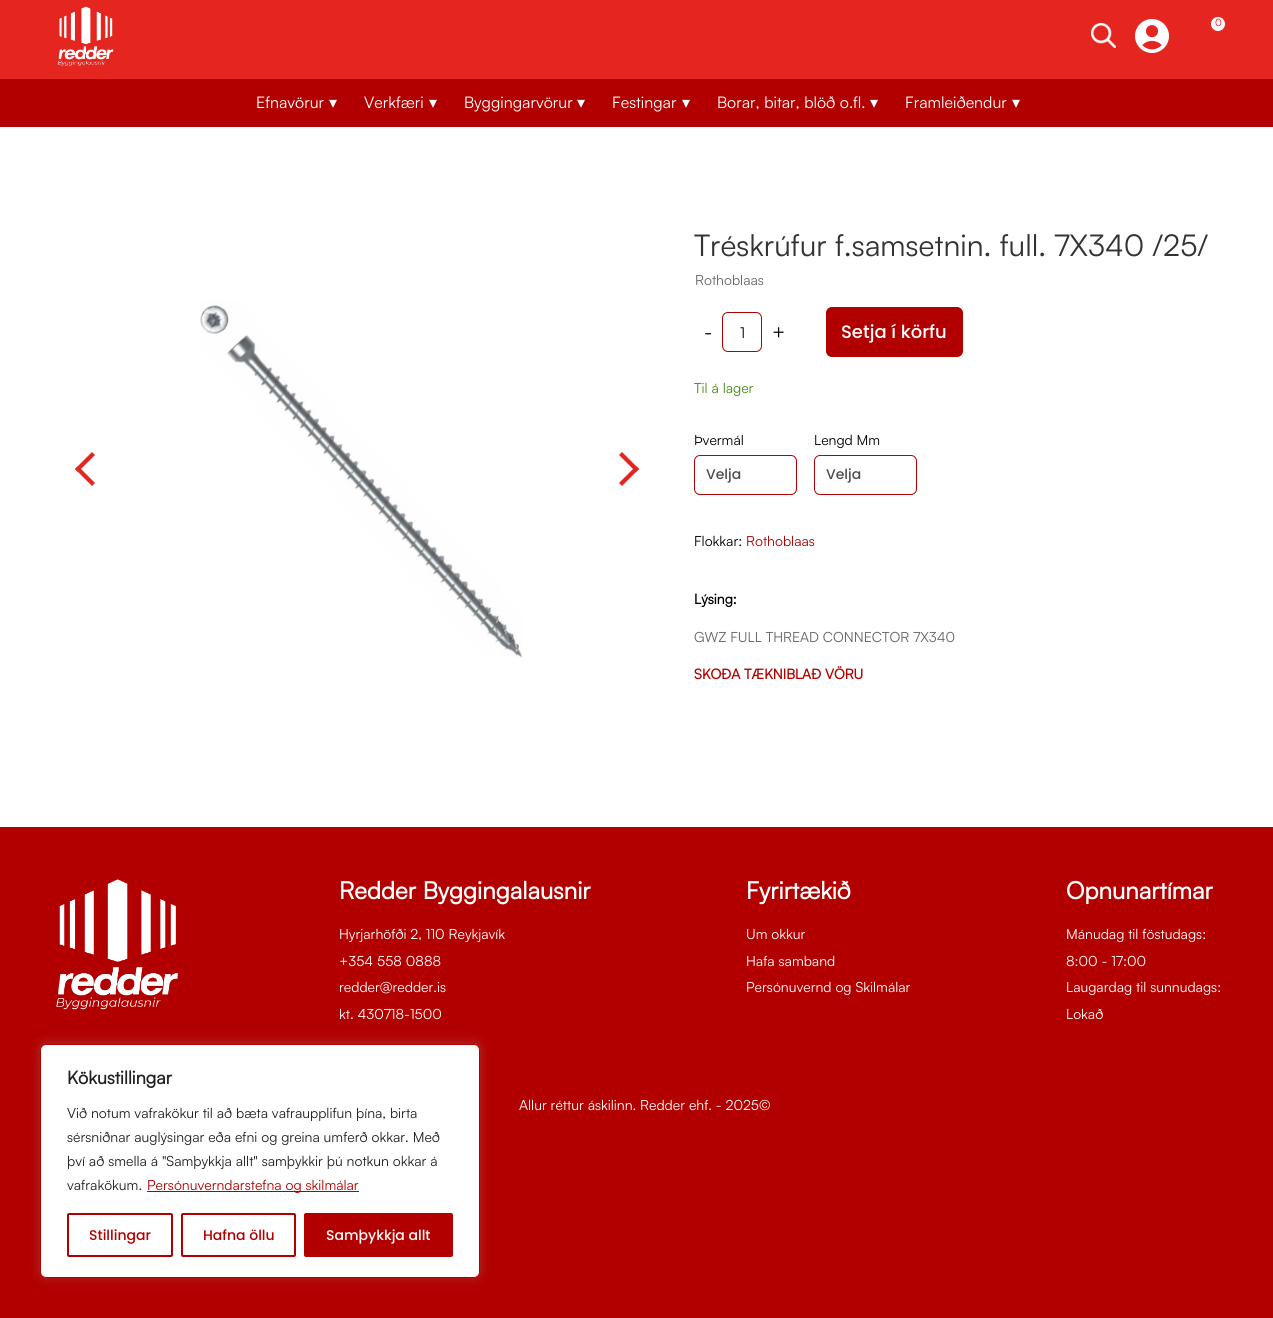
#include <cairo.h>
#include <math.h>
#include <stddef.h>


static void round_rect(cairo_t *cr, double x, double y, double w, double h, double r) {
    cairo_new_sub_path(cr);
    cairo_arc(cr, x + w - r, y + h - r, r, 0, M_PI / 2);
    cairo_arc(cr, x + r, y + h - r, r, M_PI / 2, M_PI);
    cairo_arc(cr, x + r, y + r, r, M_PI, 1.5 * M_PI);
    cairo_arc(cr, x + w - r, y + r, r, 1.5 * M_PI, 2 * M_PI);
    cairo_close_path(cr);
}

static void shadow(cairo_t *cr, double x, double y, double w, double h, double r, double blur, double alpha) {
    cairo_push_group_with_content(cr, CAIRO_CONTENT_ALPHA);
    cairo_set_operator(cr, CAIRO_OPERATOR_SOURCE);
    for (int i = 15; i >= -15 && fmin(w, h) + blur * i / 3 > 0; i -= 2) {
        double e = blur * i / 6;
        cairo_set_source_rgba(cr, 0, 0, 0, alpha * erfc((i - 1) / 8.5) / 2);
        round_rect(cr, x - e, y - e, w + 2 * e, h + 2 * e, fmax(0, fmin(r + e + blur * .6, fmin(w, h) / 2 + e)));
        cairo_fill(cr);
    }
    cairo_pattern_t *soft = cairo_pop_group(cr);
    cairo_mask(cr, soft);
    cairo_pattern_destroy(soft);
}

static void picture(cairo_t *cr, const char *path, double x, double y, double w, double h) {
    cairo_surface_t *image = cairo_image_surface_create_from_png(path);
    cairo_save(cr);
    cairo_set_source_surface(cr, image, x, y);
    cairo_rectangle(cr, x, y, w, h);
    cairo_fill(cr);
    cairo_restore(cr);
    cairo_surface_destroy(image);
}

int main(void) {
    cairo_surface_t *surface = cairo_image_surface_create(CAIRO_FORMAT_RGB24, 1273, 1318);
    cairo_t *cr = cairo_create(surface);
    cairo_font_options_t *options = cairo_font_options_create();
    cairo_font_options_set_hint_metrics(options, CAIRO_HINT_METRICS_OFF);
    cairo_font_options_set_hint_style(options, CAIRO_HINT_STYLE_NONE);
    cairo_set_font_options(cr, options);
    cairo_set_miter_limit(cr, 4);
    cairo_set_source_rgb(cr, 0.698, 0, 0);
    cairo_paint(cr);
    cairo_set_source_rgb(cr, 1, 1, 1);
    cairo_rectangle(cr, 0, 127, 1273, 700);
    cairo_fill(cr);
    cairo_set_source_rgb(cr, 0.898, 0.145, 0.122);
    cairo_rectangle(cr, 0, 0, 1273, 79);
    cairo_fill(cr);
    picture(cr, "img1.png", 57, 6, 57, 60);
    picture(cr, "img2.png", 1091, 23, 25, 25);
    picture(cr, "img3.png", 1135, 19, 34, 34);
    cairo_set_source_rgb(cr, 1, 1, 1);
    cairo_arc(cr, 1218, 24, 7.5, 0, 2 * M_PI);
    cairo_fill_preserve(cr);
    cairo_set_source_rgb(cr, 0.898, 0.145, 0.122);
    cairo_set_line_width(cr, 1);
    cairo_stroke(cr);
    cairo_select_font_face(cr, "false", CAIRO_FONT_SLANT_NORMAL, CAIRO_FONT_WEIGHT_NORMAL);
    cairo_set_font_size(cr, 10);
    cairo_set_source_rgb(cr, 1, 0, 0);
    cairo_move_to(cr, 1215, 26);
    cairo_show_text(cr, "0");
    cairo_set_font_size(cr, 16);
    cairo_set_source_rgb(cr, 1, 1, 1);
    cairo_move_to(cr, 256, 108);
    cairo_show_text(cr, "Efnavörur");
    cairo_select_font_face(cr, "DejaVu Sans", CAIRO_FONT_SLANT_NORMAL, CAIRO_FONT_WEIGHT_NORMAL);
    cairo_move_to(cr, 329, 108);
    cairo_show_text(cr, "▾");
    cairo_select_font_face(cr, "false", CAIRO_FONT_SLANT_NORMAL, CAIRO_FONT_WEIGHT_NORMAL);
    cairo_move_to(cr, 364, 108);
    cairo_show_text(cr, "Verkfæri");
    cairo_select_font_face(cr, "DejaVu Sans", CAIRO_FONT_SLANT_NORMAL, CAIRO_FONT_WEIGHT_NORMAL);
    cairo_move_to(cr, 429, 108);
    cairo_show_text(cr, "▾");
    cairo_select_font_face(cr, "false", CAIRO_FONT_SLANT_NORMAL, CAIRO_FONT_WEIGHT_NORMAL);
    cairo_move_to(cr, 464, 108);
    cairo_show_text(cr, "Byggingarvörur");
    cairo_select_font_face(cr, "DejaVu Sans", CAIRO_FONT_SLANT_NORMAL, CAIRO_FONT_WEIGHT_NORMAL);
    cairo_move_to(cr, 577, 108);
    cairo_show_text(cr, "▾");
    cairo_select_font_face(cr, "false", CAIRO_FONT_SLANT_NORMAL, CAIRO_FONT_WEIGHT_NORMAL);
    cairo_move_to(cr, 612, 108);
    cairo_show_text(cr, "Festingar");
    cairo_select_font_face(cr, "DejaVu Sans", CAIRO_FONT_SLANT_NORMAL, CAIRO_FONT_WEIGHT_NORMAL);
    cairo_move_to(cr, 682, 108);
    cairo_show_text(cr, "▾");
    cairo_select_font_face(cr, "false", CAIRO_FONT_SLANT_NORMAL, CAIRO_FONT_WEIGHT_NORMAL);
    cairo_move_to(cr, 717, 108);
    cairo_show_text(cr, "Borar, bitar, blöð o.fl.");
    cairo_select_font_face(cr, "DejaVu Sans", CAIRO_FONT_SLANT_NORMAL, CAIRO_FONT_WEIGHT_NORMAL);
    cairo_move_to(cr, 870, 108);
    cairo_show_text(cr, "▾");
    cairo_select_font_face(cr, "false", CAIRO_FONT_SLANT_NORMAL, CAIRO_FONT_WEIGHT_NORMAL);
    cairo_move_to(cr, 905, 108);
    cairo_show_text(cr, "Framleiðendur");
    cairo_select_font_face(cr, "DejaVu Sans", CAIRO_FONT_SLANT_NORMAL, CAIRO_FONT_WEIGHT_NORMAL);
    cairo_move_to(cr, 1012, 108);
    cairo_show_text(cr, "▾");
    cairo_set_source_rgb(cr, 0.898, 0.145, 0.122);
    cairo_new_path(cr);
    cairo_move_to(cr, 95, 483);
    cairo_line_to(cr, 92, 486);
    cairo_line_to(cr, 75, 469);
    cairo_line_to(cr, 78, 466);
    cairo_close_path(cr);
    cairo_fill(cr);
    cairo_new_path(cr);
    cairo_move_to(cr, 95, 455);
    cairo_line_to(cr, 78, 472);
    cairo_line_to(cr, 75, 469);
    cairo_line_to(cr, 92, 452);
    cairo_close_path(cr);
    cairo_fill(cr);
    picture(cr, "img4.png", 200, 300, 323, 358);
    cairo_new_path(cr);
    cairo_move_to(cr, 619, 455);
    cairo_line_to(cr, 622, 452);
    cairo_line_to(cr, 639, 469);
    cairo_line_to(cr, 636, 472);
    cairo_close_path(cr);
    cairo_fill(cr);
    cairo_new_path(cr);
    cairo_move_to(cr, 619, 483);
    cairo_line_to(cr, 636, 466);
    cairo_line_to(cr, 639, 469);
    cairo_line_to(cr, 622, 486);
    cairo_close_path(cr);
    cairo_fill(cr);
    cairo_select_font_face(cr, "false", CAIRO_FONT_SLANT_NORMAL, CAIRO_FONT_WEIGHT_NORMAL);
    cairo_set_font_size(cr, 30);
    cairo_set_source_rgb(cr, 0.2, 0.2, 0.2);
    cairo_move_to(cr, 694, 256);
    cairo_show_text(cr, "Tréskrúfur f.samsetnin. full. 7X340 /25/");
    cairo_set_font_size(cr, 14);
    cairo_set_source_rgb(cr, 0.4, 0.4, 0.4);
    cairo_move_to(cr, 695, 285);
    cairo_show_text(cr, "Rothoblaas");
    cairo_set_font_size(cr, 20);
    cairo_set_source_rgb(cr, 0, 0, 0);
    cairo_move_to(cr, 704, 339);
    cairo_show_text(cr, "-");
    round_rect(cr, 722.5, 312.5, 39, 39, 5.5);
    cairo_set_source_rgb(cr, 0.698, 0, 0);
    cairo_stroke(cr);
    cairo_set_font_size(cr, 15);
    cairo_set_source_rgb(cr, 0, 0, 0);
    cairo_move_to(cr, 740, 338);
    cairo_show_text(cr, "1");
    cairo_set_font_size(cr, 20);
    cairo_move_to(cr, 772, 339);
    cairo_show_text(cr, "+");
    cairo_set_source_rgb(cr, 0.698, 0, 0);
    round_rect(cr, 826, 307, 137, 50, 6);
    cairo_fill(cr);
    cairo_select_font_face(cr, "Poppins Medium", CAIRO_FONT_SLANT_NORMAL, CAIRO_FONT_WEIGHT_NORMAL);
    cairo_set_font_size(cr, 18);
    cairo_set_source_rgb(cr, 1, 1, 1);
    cairo_move_to(cr, 841, 338);
    cairo_show_text(cr, "Setja í körfu");
    cairo_select_font_face(cr, "false", CAIRO_FONT_SLANT_NORMAL, CAIRO_FONT_WEIGHT_NORMAL);
    cairo_set_font_size(cr, 14);
    cairo_set_source_rgb(cr, 0.271, 0.545, 0.055);
    cairo_move_to(cr, 694, 393);
    cairo_show_text(cr, "Til á lager");
    cairo_set_source_rgb(cr, 0, 0, 0);
    cairo_move_to(cr, 694, 445);
    cairo_show_text(cr, "Þvermál");
    round_rect(cr, 694.5, 455.5, 102, 39, 5.5);
    cairo_set_source_rgb(cr, 0.698, 0, 0);
    cairo_stroke(cr);
    cairo_select_font_face(cr, "Poppins Medium", CAIRO_FONT_SLANT_NORMAL, CAIRO_FONT_WEIGHT_NORMAL);
    cairo_set_source_rgb(cr, 0.306, 0.306, 0.306);
    cairo_move_to(cr, 706, 479);
    cairo_show_text(cr, "Velja");
    cairo_select_font_face(cr, "false", CAIRO_FONT_SLANT_NORMAL, CAIRO_FONT_WEIGHT_NORMAL);
    cairo_set_source_rgb(cr, 0, 0, 0);
    cairo_move_to(cr, 814, 445);
    cairo_show_text(cr, "Lengd Mm");
    round_rect(cr, 814.5, 455.5, 102, 39, 5.5);
    cairo_set_source_rgb(cr, 0.698, 0, 0);
    cairo_stroke(cr);
    cairo_select_font_face(cr, "Poppins Medium", CAIRO_FONT_SLANT_NORMAL, CAIRO_FONT_WEIGHT_NORMAL);
    cairo_set_source_rgb(cr, 0.306, 0.306, 0.306);
    cairo_move_to(cr, 826, 479);
    cairo_show_text(cr, "Velja");
    cairo_select_font_face(cr, "false", CAIRO_FONT_SLANT_NORMAL, CAIRO_FONT_WEIGHT_NORMAL);
    cairo_set_source_rgb(cr, 0, 0, 0);
    cairo_move_to(cr, 694, 546);
    cairo_show_text(cr, "Flokkar:");
    cairo_set_source_rgb(cr, 0.698, 0, 0);
    cairo_move_to(cr, 746, 546);
    cairo_show_text(cr, "Rothoblaas");
    cairo_select_font_face(cr, "false", CAIRO_FONT_SLANT_NORMAL, CAIRO_FONT_WEIGHT_BOLD);
    cairo_set_source_rgb(cr, 0, 0, 0);
    cairo_move_to(cr, 694, 604);
    cairo_show_text(cr, "Lýsing:");
    cairo_select_font_face(cr, "false", CAIRO_FONT_SLANT_NORMAL, CAIRO_FONT_WEIGHT_NORMAL);
    cairo_set_source_rgb(cr, 0.4, 0.4, 0.4);
    cairo_move_to(cr, 694, 642);
    cairo_show_text(cr, "GWZ FULL THREAD CONNECTOR 7X340");
    cairo_select_font_face(cr, "false", CAIRO_FONT_SLANT_NORMAL, CAIRO_FONT_WEIGHT_BOLD);
    cairo_set_source_rgb(cr, 0.698, 0, 0);
    cairo_move_to(cr, 694, 679);
    cairo_show_text(cr, "SKOÐA TÆKNIBLAÐ VÖRU");
    picture(cr, "img5.png", 56, 879, 122, 131);
    cairo_set_font_size(cr, 24);
    cairo_set_source_rgb(cr, 1, 1, 1);
    cairo_move_to(cr, 339, 899);
    cairo_show_text(cr, "Redder Byggingalausnir");
    cairo_select_font_face(cr, "false", CAIRO_FONT_SLANT_NORMAL, CAIRO_FONT_WEIGHT_NORMAL);
    cairo_set_font_size(cr, 14);
    cairo_move_to(cr, 339, 939);
    cairo_show_text(cr, "Hyrjarhöfði 2, 110 Reykjavík");
    cairo_move_to(cr, 339, 966);
    cairo_show_text(cr, "+354 558 0888");
    cairo_move_to(cr, 339, 992);
    cairo_show_text(cr, "redder@redder.is");
    cairo_move_to(cr, 339, 1019);
    cairo_show_text(cr, "kt. 430718-1500");
    cairo_select_font_face(cr, "false", CAIRO_FONT_SLANT_NORMAL, CAIRO_FONT_WEIGHT_BOLD);
    cairo_set_font_size(cr, 24);
    cairo_move_to(cr, 746, 899);
    cairo_show_text(cr, "Fyrirtækið");
    cairo_select_font_face(cr, "false", CAIRO_FONT_SLANT_NORMAL, CAIRO_FONT_WEIGHT_NORMAL);
    cairo_set_font_size(cr, 14);
    cairo_move_to(cr, 746, 939);
    cairo_show_text(cr, "Um okkur");
    cairo_move_to(cr, 746, 966);
    cairo_show_text(cr, "Hafa samband");
    cairo_move_to(cr, 746, 992);
    cairo_show_text(cr, "Persónuvernd og Skilmálar");
    cairo_select_font_face(cr, "false", CAIRO_FONT_SLANT_NORMAL, CAIRO_FONT_WEIGHT_BOLD);
    cairo_set_font_size(cr, 24);
    cairo_move_to(cr, 1066, 899);
    cairo_show_text(cr, "Opnunartímar");
    cairo_select_font_face(cr, "false", CAIRO_FONT_SLANT_NORMAL, CAIRO_FONT_WEIGHT_NORMAL);
    cairo_set_font_size(cr, 14);
    cairo_move_to(cr, 1066, 939);
    cairo_show_text(cr, "Mánudag til föstudags:");
    cairo_move_to(cr, 1066, 966);
    cairo_show_text(cr, "8:00 - 17:00");
    cairo_move_to(cr, 1066, 992);
    cairo_show_text(cr, "Laugardag til sunnudags:");
    cairo_move_to(cr, 1066, 1019);
    cairo_show_text(cr, "Lokað");
    cairo_move_to(cr, 519, 1110);
    cairo_show_text(cr, "Allur réttur áskilinn. Redder ehf. - 2025©");
    cairo_set_source_rgb(cr, 0.675, 0.671, 0.671);
    shadow(cr, 40, 1043, 440, 234, 6, 5, 0.3);
    cairo_set_source_rgb(cr, 1, 1, 1);
    round_rect(cr, 40.5, 1044.5, 439, 233, 5.5);
    cairo_fill_preserve(cr);
    cairo_set_source_rgb(cr, 0.698, 0, 0);
    cairo_stroke(cr);
    cairo_select_font_face(cr, "false", CAIRO_FONT_SLANT_NORMAL, CAIRO_FONT_WEIGHT_BOLD);
    cairo_set_font_size(cr, 18);
    cairo_set_source_rgb(cr, 0.129, 0.129, 0.129);
    cairo_move_to(cr, 67, 1084);
    cairo_show_text(cr, "Kökustillingar");
    cairo_select_font_face(cr, "false", CAIRO_FONT_SLANT_NORMAL, CAIRO_FONT_WEIGHT_NORMAL);
    cairo_set_font_size(cr, 14);
    cairo_move_to(cr, 67, 1118);
    cairo_show_text(cr, "Við notum vafrakökur til að bæta vafraupplifun þína, birta");
    cairo_move_to(cr, 67, 1142);
    cairo_show_text(cr, "sérsniðnar auglýsingar eða efni og greina umferð okkar. Með");
    cairo_move_to(cr, 67, 1166);
    cairo_show_text(cr, "því að smella á \"Samþykkja allt\" samþykkir þú notkun okkar á");
    cairo_move_to(cr, 67, 1190);
    cairo_show_text(cr, "vafrakökum.");
    cairo_set_source_rgb(cr, 0.698, 0, 0);
    cairo_rectangle(cr, 147, 1191, 212, 1);
    cairo_fill(cr);
    cairo_move_to(cr, 147, 1190);
    cairo_show_text(cr, "Persónuverndarstefna og skilmálar");
    round_rect(cr, 68, 1214, 104, 42, 1);
    cairo_set_line_width(cr, 2);
    cairo_stroke(cr);
    cairo_select_font_face(cr, "Poppins Medium", CAIRO_FONT_SLANT_NORMAL, CAIRO_FONT_WEIGHT_NORMAL);
    cairo_move_to(cr, 89, 1240);
    cairo_show_text(cr, "Stillingar");
    round_rect(cr, 182, 1214, 113, 42, 1);
    cairo_stroke(cr);
    cairo_move_to(cr, 203, 1240);
    cairo_show_text(cr, "Hafna öllu");
    round_rect(cr, 305, 1214, 147, 42, 1);
    cairo_fill_preserve(cr);
    cairo_stroke(cr);
    cairo_set_source_rgb(cr, 1, 1, 1);
    cairo_move_to(cr, 326, 1240);
    cairo_show_text(cr, "Samþykkja allt");
    cairo_surface_write_to_png(surface, "page.png");
    cairo_font_options_destroy(options);
    cairo_destroy(cr);
    cairo_surface_destroy(surface);
    return 0;
}
